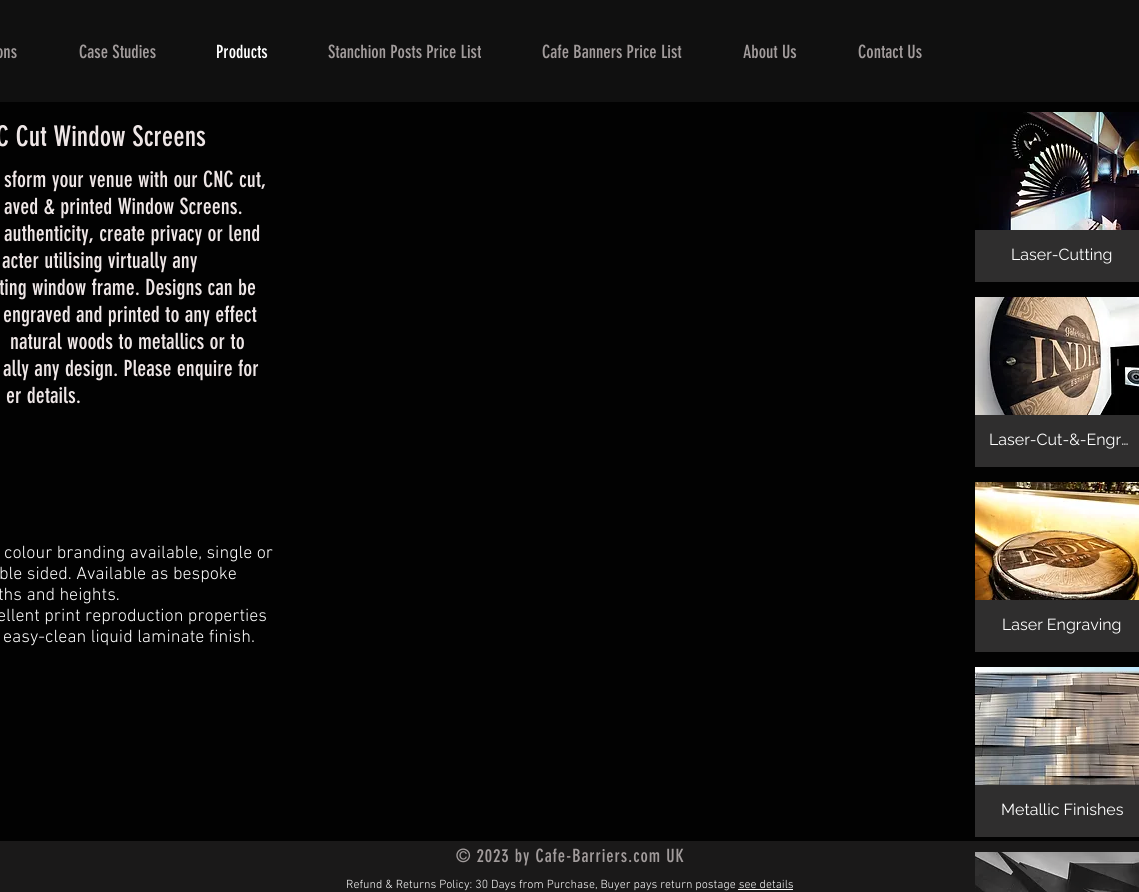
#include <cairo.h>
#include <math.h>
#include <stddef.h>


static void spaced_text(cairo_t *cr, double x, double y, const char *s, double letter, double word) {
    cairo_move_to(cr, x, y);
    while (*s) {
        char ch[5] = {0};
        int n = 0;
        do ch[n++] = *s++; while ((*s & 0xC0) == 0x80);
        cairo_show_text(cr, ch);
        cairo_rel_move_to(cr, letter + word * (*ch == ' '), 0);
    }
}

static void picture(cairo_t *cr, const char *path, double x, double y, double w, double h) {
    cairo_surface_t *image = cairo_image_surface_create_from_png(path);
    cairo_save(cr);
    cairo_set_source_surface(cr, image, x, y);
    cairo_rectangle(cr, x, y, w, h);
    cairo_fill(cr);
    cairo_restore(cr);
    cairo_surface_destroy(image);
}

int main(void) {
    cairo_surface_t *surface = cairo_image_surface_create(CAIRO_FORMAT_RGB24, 1139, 892);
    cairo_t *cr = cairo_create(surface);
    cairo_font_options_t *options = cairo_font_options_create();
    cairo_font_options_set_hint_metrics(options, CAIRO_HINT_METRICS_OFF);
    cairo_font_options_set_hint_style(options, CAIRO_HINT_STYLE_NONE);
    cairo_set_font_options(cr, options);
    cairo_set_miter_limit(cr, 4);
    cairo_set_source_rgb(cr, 0.008, 0.008, 0.008);
    cairo_paint(cr);
    cairo_set_source_rgb(cr, 0.063, 0.063, 0.063);
    cairo_rectangle(cr, 0, 0, 1139, 102);
    cairo_fill(cr);
    cairo_select_font_face(cr, "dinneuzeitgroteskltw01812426", CAIRO_FONT_SLANT_NORMAL, CAIRO_FONT_WEIGHT_NORMAL);
    cairo_set_font_size(cr, 18);
    cairo_set_source_rgb(cr, 0.635, 0.612, 0.612);
    cairo_move_to(cr, -4, 58);
    cairo_show_text(cr, "ons");
    cairo_move_to(cr, 79, 58);
    cairo_show_text(cr, "Case Studies");
    cairo_set_source_rgb(cr, 1, 1, 1);
    cairo_move_to(cr, 216, 58);
    cairo_show_text(cr, "Products");
    cairo_set_source_rgb(cr, 0.635, 0.612, 0.612);
    cairo_move_to(cr, 328, 58);
    cairo_show_text(cr, "Stanchion Posts Price List");
    cairo_move_to(cr, 542, 58);
    cairo_show_text(cr, "Cafe Banners Price List");
    cairo_move_to(cr, 743, 58);
    cairo_show_text(cr, "About Us");
    cairo_move_to(cr, 858, 58);
    cairo_show_text(cr, "Contact Us");
    cairo_set_font_size(cr, 28);
    cairo_set_source_rgb(cr, 0.933, 0.902, 0.902);
    cairo_move_to(cr, -4, 146);
    cairo_show_text(cr, "C Cut Window Screens");
    cairo_set_font_size(cr, 22);
    cairo_move_to(cr, 4, 187);
    cairo_show_text(cr, "sform your venue with our CNC cut,");
    cairo_move_to(cr, 4, 214);
    cairo_show_text(cr, "aved & printed Window Screens.");
    cairo_move_to(cr, 4, 241);
    cairo_show_text(cr, "authenticity, create privacy or lend");
    cairo_move_to(cr, 2, 268);
    cairo_show_text(cr, "acter utilising virtually any");
    cairo_move_to(cr, -1, 295);
    cairo_show_text(cr, "ting window frame. Designs can be");
    cairo_move_to(cr, 3, 322);
    cairo_show_text(cr, "engraved and printed to any effect");
    cairo_move_to(cr, 10, 349);
    cairo_show_text(cr, "natural woods to metallics or to");
    cairo_move_to(cr, 3, 376);
    cairo_show_text(cr, "ally any design. Please enquire for");
    cairo_move_to(cr, 6, 403);
    cairo_show_text(cr, "er details.");
    picture(cr, "img1.png", 975, 112, 164, 118);
    cairo_set_source_rgb(cr, 0.184, 0.18, 0.18);
    cairo_rectangle(cr, 975, 230, 164, 52);
    cairo_fill(cr);
    cairo_select_font_face(cr, "Raleway", CAIRO_FONT_SLANT_NORMAL, CAIRO_FONT_WEIGHT_NORMAL);
    cairo_set_font_size(cr, 16);
    cairo_set_source_rgb(cr, 1, 1, 1);
    cairo_move_to(cr, 1011, 260);
    cairo_show_text(cr, "Laser-Cutting");
    picture(cr, "img2.png", 975, 297, 164, 118);
    cairo_set_source_rgb(cr, 0.184, 0.18, 0.18);
    cairo_rectangle(cr, 975, 415, 164, 52);
    cairo_fill(cr);
    cairo_set_source_rgb(cr, 1, 1, 1);
    cairo_move_to(cr, 989, 445);
    cairo_show_text(cr, "Laser-Cut-&-Engr…");
    picture(cr, "img3.png", 975, 482, 164, 118);
    cairo_set_source_rgb(cr, 0.184, 0.18, 0.18);
    cairo_rectangle(cr, 975, 600, 164, 52);
    cairo_fill(cr);
    cairo_set_source_rgb(cr, 1, 1, 1);
    cairo_move_to(cr, 1002, 630);
    cairo_show_text(cr, "Laser Engraving");
    picture(cr, "img4.png", 975, 667, 164, 118);
    cairo_set_source_rgb(cr, 0.184, 0.18, 0.18);
    cairo_rectangle(cr, 975, 785, 164, 52);
    cairo_fill(cr);
    cairo_set_source_rgb(cr, 1, 1, 1);
    cairo_move_to(cr, 1001, 815);
    cairo_show_text(cr, "Metallic Finishes");
    cairo_set_source_rgb(cr, 0.102, 0.098, 0.098);
    cairo_rectangle(cr, 0, 841, 1139, 51);
    cairo_fill(cr);
    picture(cr, "img5.png", 975, 852, 164, 40);
    cairo_select_font_face(cr, "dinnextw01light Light", CAIRO_FONT_SLANT_NORMAL, CAIRO_FONT_WEIGHT_NORMAL);
    cairo_set_font_size(cr, 18);
    cairo_set_source_rgb(cr, 1, 1, 1);
    cairo_move_to(cr, 4, 558);
    cairo_show_text(cr, "colour branding available, single or");
    cairo_move_to(cr, -1, 579);
    cairo_show_text(cr, "ble sided. Available as bespoke");
    cairo_move_to(cr, -2, 600);
    cairo_show_text(cr, "ths and heights.");
    cairo_move_to(cr, -3, 621);
    cairo_show_text(cr, "ellent print reproduction properties");
    cairo_move_to(cr, 3, 642);
    cairo_show_text(cr, "easy-clean liquid laminate finish.");
    cairo_select_font_face(cr, "dinneuzeitgroteskltw01812426", CAIRO_FONT_SLANT_NORMAL, CAIRO_FONT_WEIGHT_NORMAL);
    cairo_set_source_rgb(cr, 0.635, 0.612, 0.612);
    spaced_text(cr, 456, 862, "© 2023 by Cafe-Barriers.com UK", 0.9, 0);
    cairo_select_font_face(cr, "dinnextw01light Light", CAIRO_FONT_SLANT_NORMAL, CAIRO_FONT_WEIGHT_NORMAL);
    cairo_set_font_size(cr, 12);
    cairo_set_source_rgb(cr, 1, 1, 1);
    cairo_move_to(cr, 346, 888);
    cairo_show_text(cr, "Refund & Returns Policy: 30 Days from Purchase, Buyer pays return postage see details");
    cairo_rectangle(cr, 738, 889, 55, 1);
    cairo_fill(cr);
    cairo_surface_write_to_png(surface, "page.png");
    cairo_font_options_destroy(options);
    cairo_destroy(cr);
    cairo_surface_destroy(surface);
    return 0;
}
